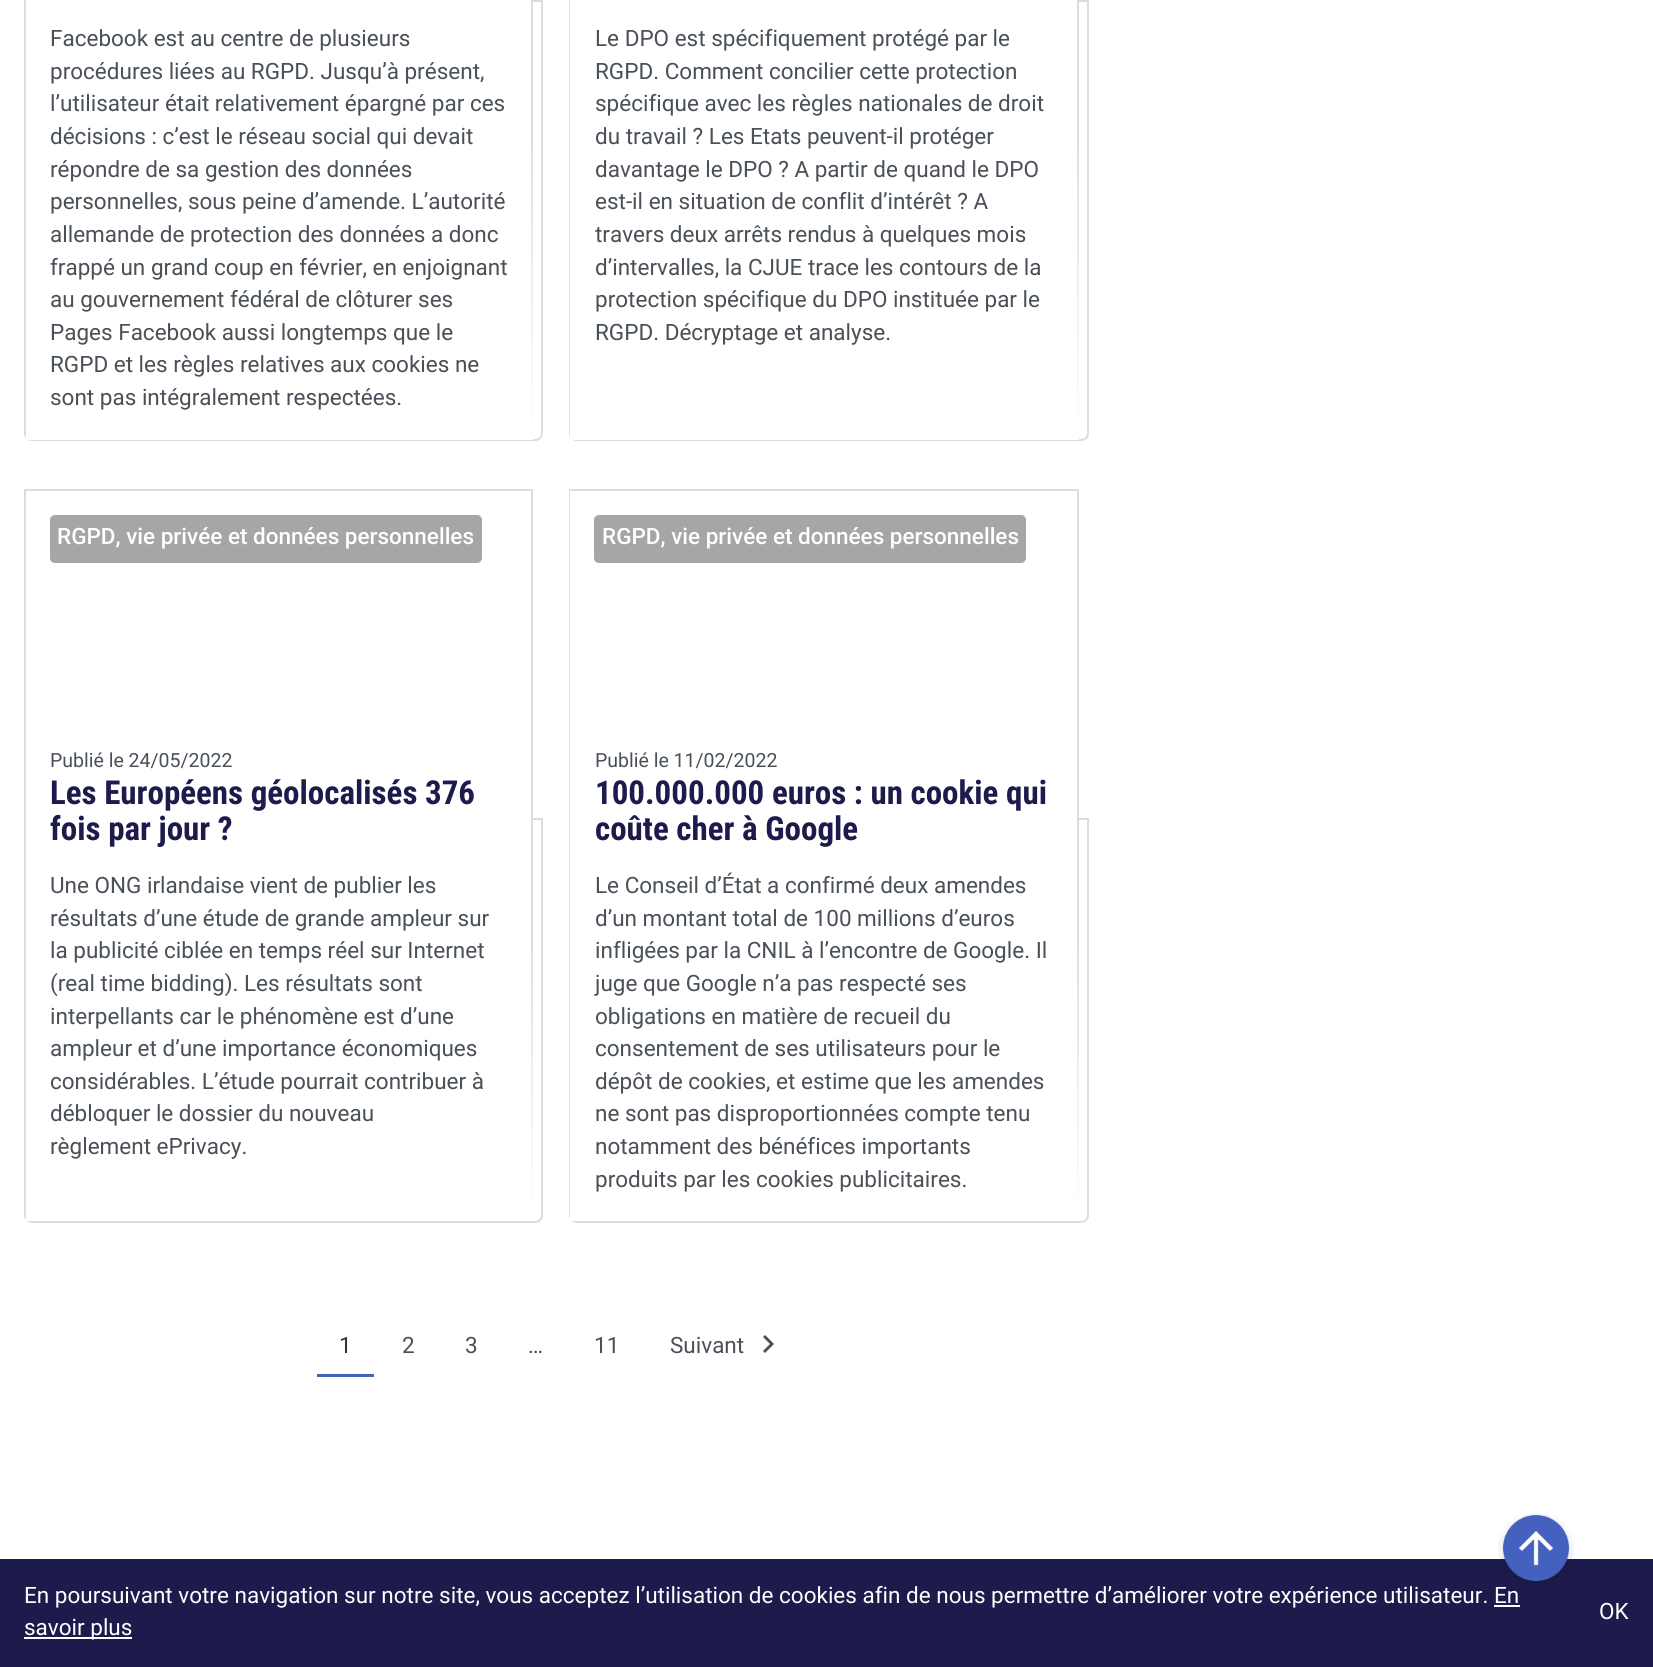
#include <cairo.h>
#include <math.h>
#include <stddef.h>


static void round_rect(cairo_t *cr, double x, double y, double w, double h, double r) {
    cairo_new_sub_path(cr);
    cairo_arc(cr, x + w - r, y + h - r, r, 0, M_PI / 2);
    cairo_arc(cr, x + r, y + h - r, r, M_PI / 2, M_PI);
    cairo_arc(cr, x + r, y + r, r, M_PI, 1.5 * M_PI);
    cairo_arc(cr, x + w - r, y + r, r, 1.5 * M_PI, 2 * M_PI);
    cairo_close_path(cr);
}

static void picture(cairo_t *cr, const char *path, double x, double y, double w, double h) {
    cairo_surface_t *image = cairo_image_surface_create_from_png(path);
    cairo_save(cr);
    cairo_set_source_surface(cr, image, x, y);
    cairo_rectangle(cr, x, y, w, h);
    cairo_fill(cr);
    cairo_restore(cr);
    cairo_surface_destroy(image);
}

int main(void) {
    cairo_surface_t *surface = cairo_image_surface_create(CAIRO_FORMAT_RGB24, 1653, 1667);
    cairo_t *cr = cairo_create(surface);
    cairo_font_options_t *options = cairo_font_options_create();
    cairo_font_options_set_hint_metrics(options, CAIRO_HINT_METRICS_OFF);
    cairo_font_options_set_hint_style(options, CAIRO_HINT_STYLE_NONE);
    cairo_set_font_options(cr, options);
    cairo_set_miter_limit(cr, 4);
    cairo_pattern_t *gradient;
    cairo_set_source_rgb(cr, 1, 1, 1);
    cairo_paint(cr);
    cairo_new_path(cr);
    cairo_move_to(cr, 25, -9);
    cairo_line_to(cr, 532, -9);
    cairo_line_to(cr, 532, 440);
    cairo_line_to(cr, 32, 440);
    cairo_curve_to(cr, 28, 440, 25, 437, 25, 433);
    cairo_close_path(cr);
    cairo_set_source_rgb(cr, 0.867, 0.867, 0.867);
    cairo_stroke(cr);
    cairo_new_path(cr);
    cairo_move_to(cr, 526, 1);
    cairo_line_to(cr, 542, 1);
    cairo_line_to(cr, 542, 433);
    cairo_curve_to(cr, 542, 437, 539, 440, 535, 440);
    cairo_line_to(cr, 526, 440);
    cairo_close_path(cr);
    cairo_stroke(cr);
    cairo_set_source_rgb(cr, 1, 1, 1);
    cairo_rectangle(cr, 26, 0, 505, 440);
    cairo_fill(cr);
    cairo_select_font_face(cr, "Roboto", CAIRO_FONT_SLANT_NORMAL, CAIRO_FONT_WEIGHT_NORMAL);
    cairo_set_font_size(cr, 22.5);
    cairo_set_source_rgb(cr, 0.286, 0.314, 0.341);
    cairo_move_to(cr, 50, 46);
    cairo_show_text(cr, "Facebook est au centre de plusieurs");
    cairo_move_to(cr, 50, 79);
    cairo_show_text(cr, "procédures liées au RGPD. Jusqu’à présent,");
    cairo_move_to(cr, 50, 111);
    cairo_show_text(cr, "l’utilisateur était relativement épargné par ces");
    cairo_move_to(cr, 50, 144);
    cairo_show_text(cr, "décisions : c’est le réseau social qui devait");
    cairo_move_to(cr, 50, 177);
    cairo_show_text(cr, "répondre de sa gestion des données");
    cairo_move_to(cr, 50, 209);
    cairo_show_text(cr, "personnelles, sous peine d’amende. L’autorité");
    cairo_move_to(cr, 50, 242);
    cairo_show_text(cr, "allemande de protection des données a donc");
    cairo_move_to(cr, 50, 275);
    cairo_show_text(cr, "frappé un grand coup en février, en enjoignant");
    cairo_move_to(cr, 50, 307);
    cairo_show_text(cr, "au gouvernement fédéral de clôturer ses");
    cairo_move_to(cr, 50, 340);
    cairo_show_text(cr, "Pages Facebook aussi longtemps que le");
    cairo_move_to(cr, 50, 372);
    cairo_show_text(cr, "RGPD et les règles relatives aux cookies ne");
    cairo_move_to(cr, 50, 405);
    cairo_show_text(cr, "sont pas intégralement respectées.");
    gradient = cairo_pattern_create_linear(532, 122, 532, 440);
    cairo_pattern_add_color_stop_rgba(gradient, 0, 0.867, 0.867, 0.867, 1);
    cairo_pattern_add_color_stop_rgba(gradient, 1, 1, 1, 1, 1);
    cairo_set_source(cr, gradient);
    cairo_pattern_destroy(gradient);
    cairo_rectangle(cr, 531, 145, 2, 295);
    cairo_fill(cr);
    cairo_new_path(cr);
    cairo_move_to(cr, 570, -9);
    cairo_line_to(cr, 1078, -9);
    cairo_line_to(cr, 1078, 440);
    cairo_line_to(cr, 577, 440);
    cairo_curve_to(cr, 573, 440, 570, 437, 570, 433);
    cairo_close_path(cr);
    cairo_set_source_rgb(cr, 0.867, 0.867, 0.867);
    cairo_stroke(cr);
    cairo_new_path(cr);
    cairo_move_to(cr, 1072, 1);
    cairo_line_to(cr, 1088, 1);
    cairo_line_to(cr, 1088, 433);
    cairo_curve_to(cr, 1088, 437, 1085, 440, 1081, 440);
    cairo_line_to(cr, 1072, 440);
    cairo_close_path(cr);
    cairo_stroke(cr);
    cairo_set_source_rgb(cr, 1, 1, 1);
    cairo_rectangle(cr, 570, 0, 507, 440);
    cairo_fill(cr);
    cairo_set_source_rgb(cr, 0.286, 0.314, 0.341);
    cairo_move_to(cr, 595, 46);
    cairo_show_text(cr, "Le DPO est spécifiquement protégé par le");
    cairo_move_to(cr, 595, 79);
    cairo_show_text(cr, "RGPD. Comment concilier cette protection");
    cairo_move_to(cr, 595, 111);
    cairo_show_text(cr, "spécifique avec les règles nationales de droit");
    cairo_move_to(cr, 595, 144);
    cairo_show_text(cr, "du travail ? Les Etats peuvent-il protéger");
    cairo_move_to(cr, 595, 177);
    cairo_show_text(cr, "davantage le DPO ? A partir de quand le DPO");
    cairo_move_to(cr, 595, 209);
    cairo_show_text(cr, "est-il en situation de conflit d’intérêt ? A");
    cairo_move_to(cr, 595, 242);
    cairo_show_text(cr, "travers deux arrêts rendus à quelques mois");
    cairo_move_to(cr, 595, 275);
    cairo_show_text(cr, "d’intervalles, la CJUE trace les contours de la");
    cairo_move_to(cr, 595, 307);
    cairo_show_text(cr, "protection spécifique du DPO instituée par le");
    cairo_move_to(cr, 595, 340);
    cairo_show_text(cr, "RGPD. Décryptage et analyse.");
    gradient = cairo_pattern_create_linear(1078, 122, 1078, 440);
    cairo_pattern_add_color_stop_rgba(gradient, 0, 0.867, 0.867, 0.867, 1);
    cairo_pattern_add_color_stop_rgba(gradient, 1, 1, 1, 1, 1);
    cairo_set_source(cr, gradient);
    cairo_pattern_destroy(gradient);
    cairo_rectangle(cr, 1077, 145, 2, 295);
    cairo_fill(cr);
    cairo_new_path(cr);
    cairo_move_to(cr, 25, 490);
    cairo_line_to(cr, 532, 490);
    cairo_line_to(cr, 532, 1222);
    cairo_line_to(cr, 32, 1222);
    cairo_curve_to(cr, 28, 1222, 25, 1219, 25, 1215);
    cairo_close_path(cr);
    cairo_set_source_rgb(cr, 0.867, 0.867, 0.867);
    cairo_stroke(cr);
    cairo_new_path(cr);
    cairo_move_to(cr, 526, 819);
    cairo_line_to(cr, 542, 819);
    cairo_line_to(cr, 542, 1215);
    cairo_curve_to(cr, 542, 1219, 539, 1222, 535, 1222);
    cairo_line_to(cr, 526, 1222);
    cairo_close_path(cr);
    cairo_stroke(cr);
    cairo_set_source_rgb(cr, 1, 1, 1);
    cairo_rectangle(cr, 26, 818, 505, 403);
    cairo_fill(cr);
    cairo_set_source_rgb(cr, 0.651, 0.651, 0.651);
    round_rect(cr, 50, 515, 432, 48, 5);
    cairo_fill(cr);
    cairo_select_font_face(cr, "Roboto Medium", CAIRO_FONT_SLANT_NORMAL, CAIRO_FONT_WEIGHT_NORMAL);
    cairo_set_source_rgb(cr, 1, 1, 1);
    cairo_move_to(cr, 57, 544);
    cairo_show_text(cr, "RGPD, vie privée et données personnelles");
    cairo_select_font_face(cr, "Roboto", CAIRO_FONT_SLANT_NORMAL, CAIRO_FONT_WEIGHT_NORMAL);
    cairo_set_font_size(cr, 19.5);
    cairo_set_source_rgb(cr, 0.286, 0.314, 0.341);
    cairo_move_to(cr, 50, 767);
    cairo_show_text(cr, "Publié le 24/05/2022");
    cairo_select_font_face(cr, "Roboto Condensed", CAIRO_FONT_SLANT_NORMAL, CAIRO_FONT_WEIGHT_BOLD);
    cairo_set_font_size(cr, 33);
    cairo_set_source_rgb(cr, 0.114, 0.106, 0.298);
    cairo_move_to(cr, 50, 804);
    cairo_show_text(cr, "Les Européens géolocalisés 376");
    cairo_move_to(cr, 50, 840);
    cairo_show_text(cr, "fois par jour ?");
    cairo_select_font_face(cr, "Roboto", CAIRO_FONT_SLANT_NORMAL, CAIRO_FONT_WEIGHT_NORMAL);
    cairo_set_font_size(cr, 22.5);
    cairo_set_source_rgb(cr, 0.286, 0.314, 0.341);
    cairo_move_to(cr, 50, 893);
    cairo_show_text(cr, "Une ONG irlandaise vient de publier les");
    cairo_move_to(cr, 50, 926);
    cairo_show_text(cr, "résultats d’une étude de grande ampleur sur");
    cairo_move_to(cr, 50, 958);
    cairo_show_text(cr, "la publicité ciblée en temps réel sur Internet");
    cairo_move_to(cr, 50, 991);
    cairo_show_text(cr, "(real time bidding). Les résultats sont");
    cairo_move_to(cr, 50, 1024);
    cairo_show_text(cr, "interpellants car le phénomène est d’une");
    cairo_move_to(cr, 50, 1056);
    cairo_show_text(cr, "ampleur et d’une importance économiques");
    cairo_move_to(cr, 50, 1089);
    cairo_show_text(cr, "considérables. L’étude pourrait contribuer à");
    cairo_move_to(cr, 50, 1121);
    cairo_show_text(cr, "débloquer le dossier du nouveau");
    cairo_move_to(cr, 50, 1154);
    cairo_show_text(cr, "règlement ePrivacy.");
    gradient = cairo_pattern_create_linear(532, 929, 532, 1221);
    cairo_pattern_add_color_stop_rgba(gradient, 0, 0.867, 0.867, 0.867, 1);
    cairo_pattern_add_color_stop_rgba(gradient, 1, 1, 1, 1, 1);
    cairo_set_source(cr, gradient);
    cairo_pattern_destroy(gradient);
    cairo_rectangle(cr, 531, 950, 2, 271);
    cairo_fill(cr);
    cairo_new_path(cr);
    cairo_move_to(cr, 570, 490);
    cairo_line_to(cr, 1078, 490);
    cairo_line_to(cr, 1078, 1222);
    cairo_line_to(cr, 577, 1222);
    cairo_curve_to(cr, 573, 1222, 570, 1219, 570, 1215);
    cairo_close_path(cr);
    cairo_set_source_rgb(cr, 0.867, 0.867, 0.867);
    cairo_stroke(cr);
    cairo_new_path(cr);
    cairo_move_to(cr, 1072, 819);
    cairo_line_to(cr, 1088, 819);
    cairo_line_to(cr, 1088, 1215);
    cairo_curve_to(cr, 1088, 1219, 1085, 1222, 1081, 1222);
    cairo_line_to(cr, 1072, 1222);
    cairo_close_path(cr);
    cairo_stroke(cr);
    cairo_set_source_rgb(cr, 1, 1, 1);
    cairo_rectangle(cr, 570, 491, 507, 730);
    cairo_fill(cr);
    cairo_set_source_rgb(cr, 0.651, 0.651, 0.651);
    round_rect(cr, 594, 515, 432, 48, 5);
    cairo_fill(cr);
    cairo_select_font_face(cr, "Roboto Medium", CAIRO_FONT_SLANT_NORMAL, CAIRO_FONT_WEIGHT_NORMAL);
    cairo_set_source_rgb(cr, 1, 1, 1);
    cairo_move_to(cr, 602, 544);
    cairo_show_text(cr, "RGPD, vie privée et données personnelles");
    cairo_select_font_face(cr, "Roboto", CAIRO_FONT_SLANT_NORMAL, CAIRO_FONT_WEIGHT_NORMAL);
    cairo_set_font_size(cr, 19.5);
    cairo_set_source_rgb(cr, 0.286, 0.314, 0.341);
    cairo_move_to(cr, 595, 767);
    cairo_show_text(cr, "Publié le 11/02/2022");
    cairo_select_font_face(cr, "Roboto Condensed", CAIRO_FONT_SLANT_NORMAL, CAIRO_FONT_WEIGHT_BOLD);
    cairo_set_font_size(cr, 33);
    cairo_set_source_rgb(cr, 0.114, 0.106, 0.298);
    cairo_move_to(cr, 595, 804);
    cairo_show_text(cr, "100.000.000 euros : un cookie qui");
    cairo_move_to(cr, 595, 840);
    cairo_show_text(cr, "coûte cher à Google");
    cairo_select_font_face(cr, "Roboto", CAIRO_FONT_SLANT_NORMAL, CAIRO_FONT_WEIGHT_NORMAL);
    cairo_set_font_size(cr, 22.5);
    cairo_set_source_rgb(cr, 0.286, 0.314, 0.341);
    cairo_move_to(cr, 595, 893);
    cairo_show_text(cr, "Le Conseil d’État a confirmé deux amendes");
    cairo_move_to(cr, 595, 926);
    cairo_show_text(cr, "d’un montant total de 100 millions d’euros");
    cairo_move_to(cr, 595, 958);
    cairo_show_text(cr, "infligées par la CNIL à l’encontre de Google. Il");
    cairo_move_to(cr, 595, 991);
    cairo_show_text(cr, "juge que Google n’a pas respecté ses");
    cairo_move_to(cr, 595, 1024);
    cairo_show_text(cr, "obligations en matière de recueil du");
    cairo_move_to(cr, 595, 1056);
    cairo_show_text(cr, "consentement de ses utilisateurs pour le");
    cairo_move_to(cr, 595, 1089);
    cairo_show_text(cr, "dépôt de cookies, et estime que les amendes");
    cairo_move_to(cr, 595, 1121);
    cairo_show_text(cr, "ne sont pas disproportionnées compte tenu");
    cairo_move_to(cr, 595, 1154);
    cairo_show_text(cr, "notamment des bénéfices importants");
    cairo_move_to(cr, 595, 1187);
    cairo_show_text(cr, "produits par les cookies publicitaires.");
    gradient = cairo_pattern_create_linear(1078, 929, 1078, 1221);
    cairo_pattern_add_color_stop_rgba(gradient, 0, 0.867, 0.867, 0.867, 1);
    cairo_pattern_add_color_stop_rgba(gradient, 1, 1, 1, 1, 1);
    cairo_set_source(cr, gradient);
    cairo_pattern_destroy(gradient);
    cairo_rectangle(cr, 1077, 950, 2, 271);
    cairo_fill(cr);
    cairo_set_source_rgb(cr, 0.2, 0.2, 0.2);
    cairo_move_to(cr, 339, 1353);
    cairo_show_text(cr, "1");
    cairo_set_source_rgb(cr, 0.267, 0.38, 0.753);
    cairo_rectangle(cr, 317, 1374, 57, 3);
    cairo_fill(cr);
    cairo_set_source_rgb(cr, 0.286, 0.314, 0.341);
    cairo_move_to(cr, 402, 1353);
    cairo_show_text(cr, "2");
    cairo_move_to(cr, 465, 1353);
    cairo_show_text(cr, "3");
    cairo_move_to(cr, 528, 1353);
    cairo_show_text(cr, "…");
    cairo_move_to(cr, 594, 1353);
    cairo_show_text(cr, "11");
    cairo_move_to(cr, 670, 1353);
    cairo_show_text(cr, "Suivant");
    cairo_new_path(cr);
    cairo_move_to(cr, 763, 1351);
    cairo_line_to(cr, 770, 1344);
    cairo_line_to(cr, 763, 1337);
    cairo_line_to(cr, 765, 1335);
    cairo_line_to(cr, 774, 1344);
    cairo_line_to(cr, 765, 1353);
    cairo_close_path(cr);
    cairo_fill(cr);
    cairo_set_source_rgb(cr, 0.114, 0.106, 0.298);
    cairo_rectangle(cr, 0, 1559, 1653, 108);
    cairo_fill(cr);
    cairo_set_source_rgb(cr, 1, 1, 1);
    cairo_move_to(cr, 24, 1603);
    cairo_show_text(cr, "En poursuivant votre navigation sur notre site, vous acceptez l’utilisation de cookies afin de nous permettre d’améliorer votre expérience utilisateur. En");
    picture(cr, "img1.png", 1498, 1513, 76, 73);
    cairo_rectangle(cr, 24, 1637, 108, 2);
    cairo_fill(cr);
    cairo_move_to(cr, 24, 1635);
    cairo_show_text(cr, "savoir plus");
    cairo_rectangle(cr, 1494, 1605, 26, 2);
    cairo_fill(cr);
    cairo_move_to(cr, 1599, 1619);
    cairo_show_text(cr, "OK");
    cairo_surface_write_to_png(surface, "page.png");
    cairo_font_options_destroy(options);
    cairo_destroy(cr);
    cairo_surface_destroy(surface);
    return 0;
}
